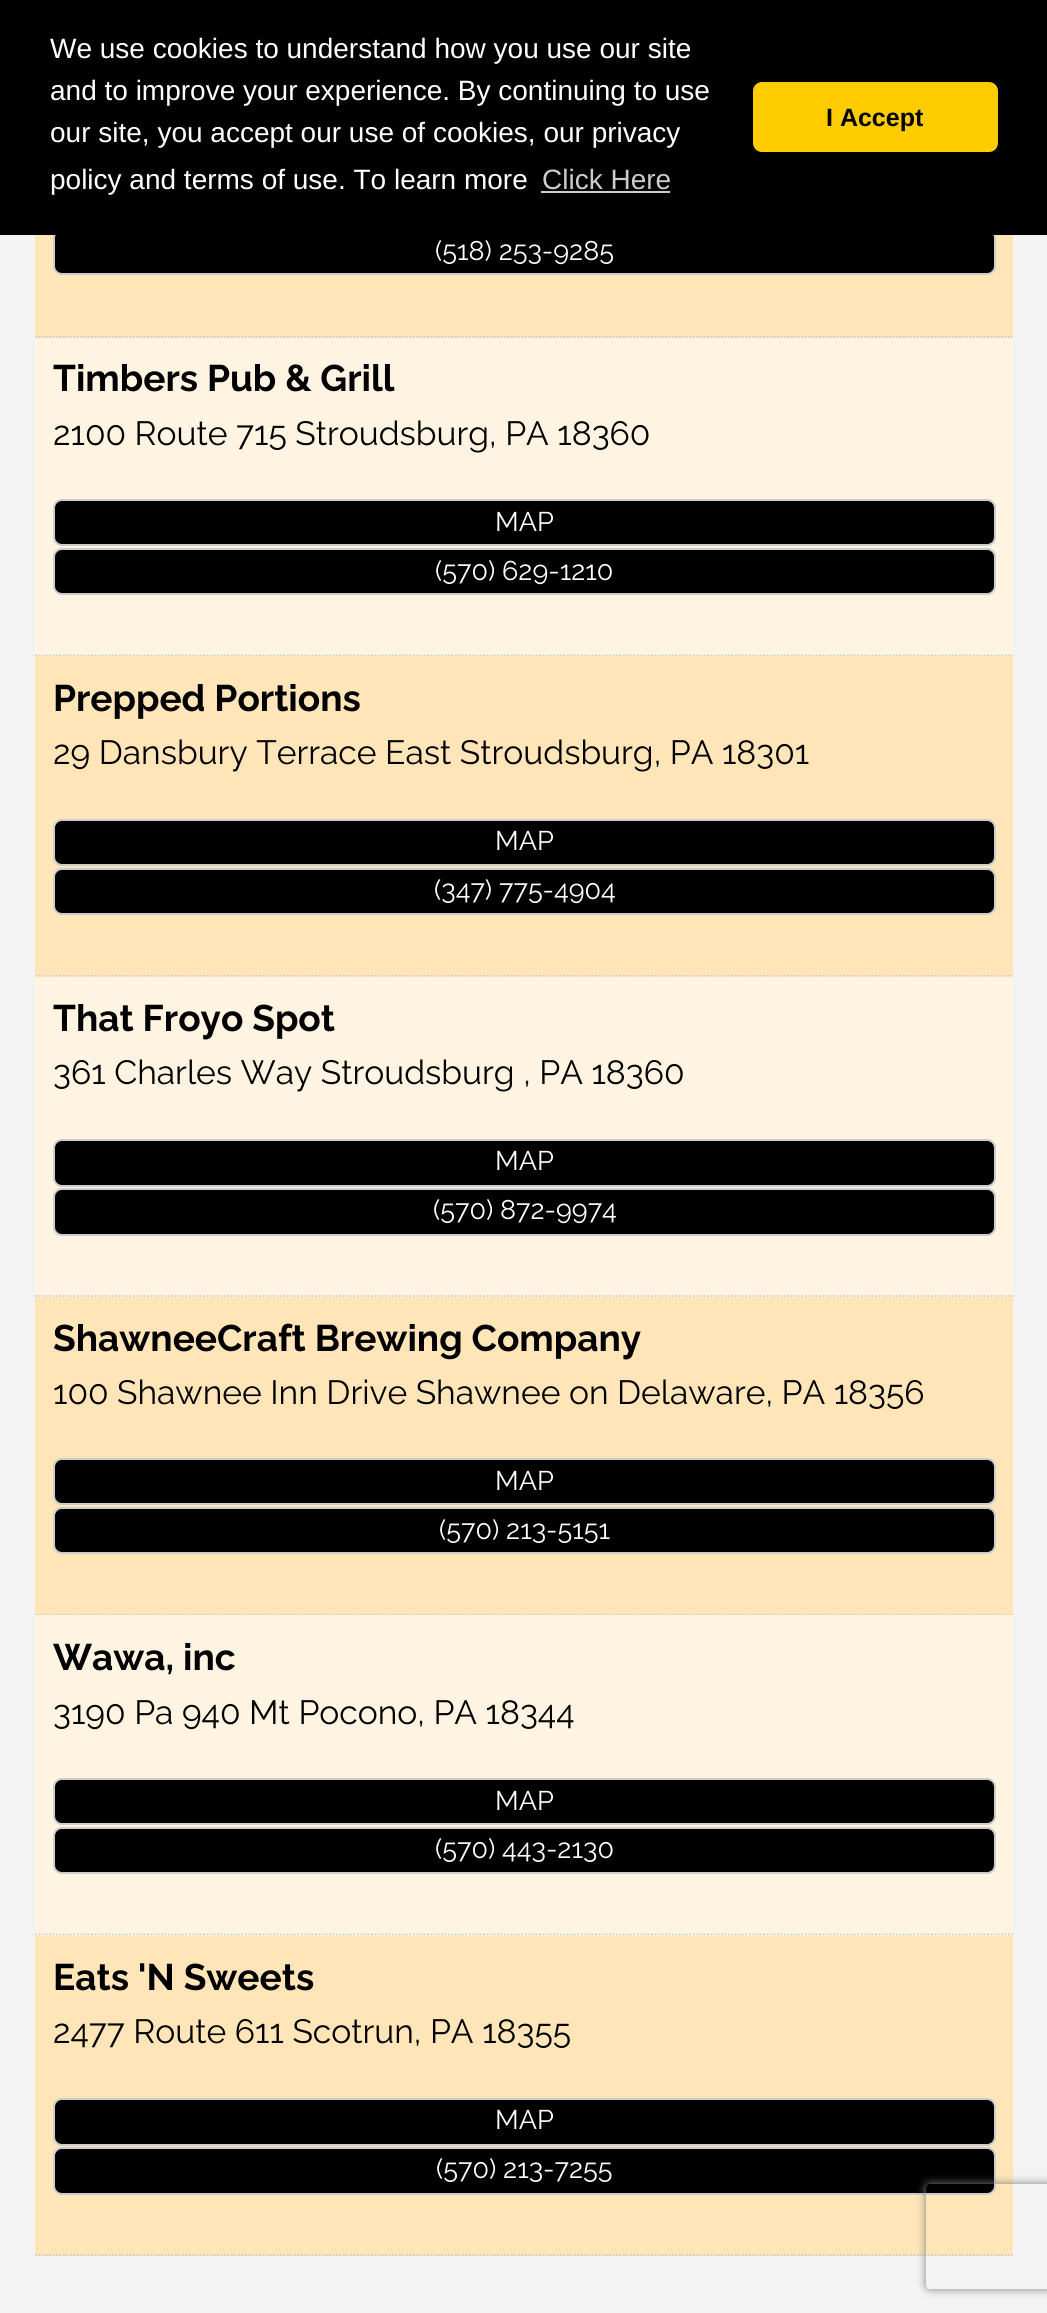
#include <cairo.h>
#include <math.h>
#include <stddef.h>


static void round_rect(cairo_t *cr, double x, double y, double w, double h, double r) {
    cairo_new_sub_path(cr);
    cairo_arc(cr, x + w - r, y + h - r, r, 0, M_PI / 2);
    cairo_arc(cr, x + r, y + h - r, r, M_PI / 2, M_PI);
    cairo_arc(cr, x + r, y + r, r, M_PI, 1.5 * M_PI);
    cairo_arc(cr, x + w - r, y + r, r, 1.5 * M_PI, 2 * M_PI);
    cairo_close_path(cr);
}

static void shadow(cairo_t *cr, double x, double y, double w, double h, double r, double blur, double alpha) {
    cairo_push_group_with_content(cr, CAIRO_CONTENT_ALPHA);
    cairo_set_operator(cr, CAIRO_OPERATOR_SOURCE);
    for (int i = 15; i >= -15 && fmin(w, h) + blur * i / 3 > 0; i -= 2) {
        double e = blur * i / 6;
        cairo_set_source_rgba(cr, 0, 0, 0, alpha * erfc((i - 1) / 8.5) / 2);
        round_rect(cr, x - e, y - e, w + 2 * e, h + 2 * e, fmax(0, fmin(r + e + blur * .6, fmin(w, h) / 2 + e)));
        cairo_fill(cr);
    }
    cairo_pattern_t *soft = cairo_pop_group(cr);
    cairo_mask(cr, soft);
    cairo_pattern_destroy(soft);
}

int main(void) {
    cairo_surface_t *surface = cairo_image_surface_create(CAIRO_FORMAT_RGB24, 1047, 2313);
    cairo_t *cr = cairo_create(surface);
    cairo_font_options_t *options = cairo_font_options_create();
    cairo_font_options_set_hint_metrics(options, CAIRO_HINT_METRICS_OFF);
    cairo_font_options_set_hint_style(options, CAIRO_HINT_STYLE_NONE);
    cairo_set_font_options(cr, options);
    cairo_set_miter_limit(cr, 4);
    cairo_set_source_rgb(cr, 0.953, 0.953, 0.953);
    cairo_paint(cr);
    cairo_set_source_rgb(cr, 1, 0.898, 0.722);
    cairo_rectangle(cr, 35, 235, 978, 103);
    cairo_fill(cr);
    cairo_set_source_rgb(cr, 0, 0, 0);
    round_rect(cr, 54, 230, 941, 44, 8);
    cairo_fill_preserve(cr);
    cairo_set_source_rgb(cr, 0.8, 0.8, 0.8);
    cairo_stroke(cr);
    cairo_set_source_rgb(cr, 0, 0, 0);
    cairo_rectangle(cr, 0, 0, 1047, 235);
    cairo_fill(cr);
    cairo_select_font_face(cr, "Liberation Sans", CAIRO_FONT_SLANT_NORMAL, CAIRO_FONT_WEIGHT_NORMAL);
    cairo_set_font_size(cr, 28);
    cairo_set_source_rgb(cr, 1, 1, 1);
    cairo_move_to(cr, 50, 58);
    cairo_show_text(cr, "We use cookies to understand how you use our site");
    cairo_move_to(cr, 50, 100);
    cairo_show_text(cr, "and to improve your experience. By continuing to use");
    cairo_move_to(cr, 50, 142);
    cairo_show_text(cr, "our site, you accept our use of cookies, our privacy");
    cairo_move_to(cr, 50, 189);
    cairo_show_text(cr, "policy and terms of use. To learn more");
    cairo_set_source_rgb(cr, 0.8, 0.8, 0.8);
    cairo_move_to(cr, 542, 189);
    cairo_show_text(cr, "Click Here");
    cairo_rectangle(cr, 541, 191, 129, 2);
    cairo_fill(cr);
    cairo_set_source_rgb(cr, 1, 0.8, 0);
    round_rect(cr, 753, 82, 245, 70, 9);
    cairo_fill(cr);
    cairo_select_font_face(cr, "Liberation Sans", CAIRO_FONT_SLANT_NORMAL, CAIRO_FONT_WEIGHT_BOLD);
    cairo_set_font_size(cr, 25);
    cairo_set_source_rgb(cr, 0, 0, 0);
    cairo_move_to(cr, 826, 126);
    cairo_show_text(cr, "I Accept");
    cairo_new_path(cr);
    cairo_move_to(cr, 35, 337);
    cairo_line_to(cr, 1013, 337);
    cairo_set_source_rgb(cr, 0.8, 0.8, 0.8);
    cairo_set_line_width(cr, 1.8);
    cairo_set_dash(cr, (double[]){1.75, 1.75}, 2, 0);
    cairo_stroke(cr);
    cairo_select_font_face(cr, "Raleway", CAIRO_FONT_SLANT_NORMAL, CAIRO_FONT_WEIGHT_NORMAL);
    cairo_set_font_size(cr, 27);
    cairo_set_source_rgb(cr, 1, 1, 1);
    cairo_move_to(cr, 435, 260);
    cairo_show_text(cr, "(518) 253-9285");
    cairo_set_source_rgb(cr, 1, 0.957, 0.882);
    cairo_rectangle(cr, 35, 338, 978, 318);
    cairo_fill(cr);
    cairo_new_path(cr);
    cairo_move_to(cr, 35, 655.5);
    cairo_line_to(cr, 1013, 655.5);
    cairo_set_source_rgb(cr, 0.8, 0.8, 0.8);
    cairo_stroke(cr);
    cairo_select_font_face(cr, "Raleway", CAIRO_FONT_SLANT_NORMAL, CAIRO_FONT_WEIGHT_BOLD);
    cairo_set_font_size(cr, 37);
    cairo_set_source_rgb(cr, 0, 0, 0);
    cairo_move_to(cr, 53, 391);
    cairo_show_text(cr, "Timbers Pub & Grill");
    cairo_select_font_face(cr, "Raleway", CAIRO_FONT_SLANT_NORMAL, CAIRO_FONT_WEIGHT_NORMAL);
    cairo_set_font_size(cr, 33.6);
    cairo_move_to(cr, 53, 445);
    cairo_show_text(cr, "2100 Route 715 Stroudsburg, PA 18360");
    round_rect(cr, 54, 500, 941, 45, 8);
    cairo_fill_preserve(cr);
    cairo_set_source_rgb(cr, 0.8, 0.8, 0.8);
    cairo_set_line_width(cr, 2);
    cairo_set_dash(cr, NULL, 0, 0);
    cairo_stroke(cr);
    cairo_set_font_size(cr, 27);
    cairo_set_source_rgb(cr, 1, 1, 1);
    cairo_move_to(cr, 495, 531);
    cairo_show_text(cr, "MAP");
    cairo_set_source_rgb(cr, 0, 0, 0);
    round_rect(cr, 54, 549, 941, 45, 8);
    cairo_fill_preserve(cr);
    cairo_set_source_rgb(cr, 0.8, 0.8, 0.8);
    cairo_stroke(cr);
    cairo_set_source_rgb(cr, 1, 1, 1);
    cairo_move_to(cr, 435, 580);
    cairo_show_text(cr, "(570) 629-1210");
    cairo_set_source_rgb(cr, 1, 0.898, 0.722);
    cairo_rectangle(cr, 35, 975, 978, 2);
    cairo_fill(cr);
    cairo_new_path(cr);
    cairo_move_to(cr, 35, 975.5);
    cairo_line_to(cr, 1013, 975.5);
    cairo_set_source_rgb(cr, 0.8, 0.8, 0.8);
    cairo_set_line_width(cr, 1.8);
    cairo_set_dash(cr, (double[]){1.75, 1.75}, 2, 0);
    cairo_stroke(cr);
    cairo_set_source_rgb(cr, 1, 0.898, 0.722);
    cairo_rectangle(cr, 35, 656, 978, 319);
    cairo_fill(cr);
    cairo_select_font_face(cr, "Raleway", CAIRO_FONT_SLANT_NORMAL, CAIRO_FONT_WEIGHT_BOLD);
    cairo_set_font_size(cr, 37);
    cairo_set_source_rgb(cr, 0, 0, 0);
    cairo_move_to(cr, 53, 711);
    cairo_show_text(cr, "Prepped Portions");
    cairo_select_font_face(cr, "Raleway", CAIRO_FONT_SLANT_NORMAL, CAIRO_FONT_WEIGHT_NORMAL);
    cairo_set_font_size(cr, 33.6);
    cairo_move_to(cr, 53, 764);
    cairo_show_text(cr, "29 Dansbury Terrace East Stroudsburg, PA 18301");
    round_rect(cr, 54, 820, 941, 45, 8);
    cairo_fill_preserve(cr);
    cairo_set_source_rgb(cr, 0.8, 0.8, 0.8);
    cairo_set_line_width(cr, 2);
    cairo_set_dash(cr, NULL, 0, 0);
    cairo_stroke(cr);
    cairo_set_font_size(cr, 27);
    cairo_set_source_rgb(cr, 1, 1, 1);
    cairo_move_to(cr, 495, 850);
    cairo_show_text(cr, "MAP");
    cairo_set_source_rgb(cr, 0, 0, 0);
    round_rect(cr, 54, 869, 941, 45, 8);
    cairo_fill_preserve(cr);
    cairo_set_source_rgb(cr, 0.8, 0.8, 0.8);
    cairo_stroke(cr);
    cairo_set_source_rgb(cr, 1, 1, 1);
    cairo_move_to(cr, 434, 899);
    cairo_show_text(cr, "(347) 775-4904");
    cairo_set_source_rgb(cr, 1, 0.957, 0.882);
    cairo_rectangle(cr, 35, 977, 978, 320);
    cairo_fill(cr);
    cairo_new_path(cr);
    cairo_move_to(cr, 35, 1296);
    cairo_line_to(cr, 1013, 1296);
    cairo_set_source_rgb(cr, 0.8, 0.8, 0.8);
    cairo_set_line_width(cr, 1.8);
    cairo_set_dash(cr, (double[]){1.75, 1.75}, 2, 0);
    cairo_stroke(cr);
    cairo_select_font_face(cr, "Raleway", CAIRO_FONT_SLANT_NORMAL, CAIRO_FONT_WEIGHT_BOLD);
    cairo_set_font_size(cr, 37);
    cairo_set_source_rgb(cr, 0, 0, 0);
    cairo_move_to(cr, 53, 1031);
    cairo_show_text(cr, "That Froyo Spot");
    cairo_select_font_face(cr, "Raleway", CAIRO_FONT_SLANT_NORMAL, CAIRO_FONT_WEIGHT_NORMAL);
    cairo_set_font_size(cr, 33.6);
    cairo_move_to(cr, 53, 1084);
    cairo_show_text(cr, "361 Charles Way Stroudsburg , PA 18360");
    round_rect(cr, 54, 1140, 941, 46, 8);
    cairo_fill_preserve(cr);
    cairo_set_source_rgb(cr, 0.8, 0.8, 0.8);
    cairo_set_line_width(cr, 2);
    cairo_set_dash(cr, NULL, 0, 0);
    cairo_stroke(cr);
    cairo_set_font_size(cr, 27);
    cairo_set_source_rgb(cr, 1, 1, 1);
    cairo_move_to(cr, 495, 1170);
    cairo_show_text(cr, "MAP");
    cairo_set_source_rgb(cr, 0, 0, 0);
    round_rect(cr, 54, 1189, 941, 46, 8);
    cairo_fill_preserve(cr);
    cairo_set_source_rgb(cr, 0.8, 0.8, 0.8);
    cairo_stroke(cr);
    cairo_set_source_rgb(cr, 1, 1, 1);
    cairo_move_to(cr, 433, 1219);
    cairo_show_text(cr, "(570) 872-9974");
    cairo_set_source_rgb(cr, 1, 0.898, 0.722);
    cairo_rectangle(cr, 36, 1614, 976, 1);
    cairo_fill(cr);
    cairo_new_path(cr);
    cairo_move_to(cr, 35, 1614.5);
    cairo_line_to(cr, 1013, 1614.5);
    cairo_set_source_rgb(cr, 0.8, 0.8, 0.8);
    cairo_set_line_width(cr, 1.8);
    cairo_set_dash(cr, (double[]){1.75, 1.75}, 2, 0);
    cairo_stroke(cr);
    cairo_set_source_rgb(cr, 1, 0.898, 0.722);
    cairo_rectangle(cr, 35, 1297, 978, 317);
    cairo_fill(cr);
    cairo_select_font_face(cr, "Raleway", CAIRO_FONT_SLANT_NORMAL, CAIRO_FONT_WEIGHT_BOLD);
    cairo_set_font_size(cr, 37);
    cairo_set_source_rgb(cr, 0, 0, 0);
    cairo_move_to(cr, 53, 1351);
    cairo_show_text(cr, "ShawneeCraft Brewing Company");
    cairo_select_font_face(cr, "Raleway", CAIRO_FONT_SLANT_NORMAL, CAIRO_FONT_WEIGHT_NORMAL);
    cairo_set_font_size(cr, 33.6);
    cairo_move_to(cr, 53, 1404);
    cairo_show_text(cr, "100 Shawnee Inn Drive Shawnee on Delaware, PA 18356");
    round_rect(cr, 54, 1459, 941, 45, 8);
    cairo_fill_preserve(cr);
    cairo_set_source_rgb(cr, 0.8, 0.8, 0.8);
    cairo_set_line_width(cr, 2);
    cairo_set_dash(cr, NULL, 0, 0);
    cairo_stroke(cr);
    cairo_set_font_size(cr, 27);
    cairo_set_source_rgb(cr, 1, 1, 1);
    cairo_move_to(cr, 495, 1490);
    cairo_show_text(cr, "MAP");
    cairo_set_source_rgb(cr, 0, 0, 0);
    round_rect(cr, 54, 1508, 941, 45, 8);
    cairo_fill_preserve(cr);
    cairo_set_source_rgb(cr, 0.8, 0.8, 0.8);
    cairo_stroke(cr);
    cairo_set_source_rgb(cr, 1, 1, 1);
    cairo_move_to(cr, 439, 1539);
    cairo_show_text(cr, "(570) 213-5151");
    cairo_set_source_rgb(cr, 1, 0.957, 0.882);
    cairo_rectangle(cr, 35, 1615, 978, 321);
    cairo_fill(cr);
    cairo_new_path(cr);
    cairo_move_to(cr, 35, 1934.5);
    cairo_line_to(cr, 1013, 1934.5);
    cairo_set_source_rgb(cr, 0.8, 0.8, 0.8);
    cairo_set_line_width(cr, 1.8);
    cairo_set_dash(cr, (double[]){1.75, 1.75}, 2, 0);
    cairo_stroke(cr);
    cairo_select_font_face(cr, "Raleway", CAIRO_FONT_SLANT_NORMAL, CAIRO_FONT_WEIGHT_BOLD);
    cairo_set_font_size(cr, 37);
    cairo_set_source_rgb(cr, 0, 0, 0);
    cairo_move_to(cr, 53, 1670);
    cairo_show_text(cr, "Wawa, inc");
    cairo_select_font_face(cr, "Raleway", CAIRO_FONT_SLANT_NORMAL, CAIRO_FONT_WEIGHT_NORMAL);
    cairo_set_font_size(cr, 33.6);
    cairo_move_to(cr, 53, 1724);
    cairo_show_text(cr, "3190 Pa 940 Mt Pocono, PA 18344");
    round_rect(cr, 54, 1779, 941, 45, 8);
    cairo_fill_preserve(cr);
    cairo_set_source_rgb(cr, 0.8, 0.8, 0.8);
    cairo_set_line_width(cr, 2);
    cairo_set_dash(cr, NULL, 0, 0);
    cairo_stroke(cr);
    cairo_set_font_size(cr, 27);
    cairo_set_source_rgb(cr, 1, 1, 1);
    cairo_move_to(cr, 495, 1810);
    cairo_show_text(cr, "MAP");
    cairo_set_source_rgb(cr, 0, 0, 0);
    round_rect(cr, 54, 1828, 941, 45, 8);
    cairo_fill_preserve(cr);
    cairo_set_source_rgb(cr, 0.8, 0.8, 0.8);
    cairo_stroke(cr);
    cairo_set_source_rgb(cr, 1, 1, 1);
    cairo_move_to(cr, 435, 1858);
    cairo_show_text(cr, "(570) 443-2130");
    cairo_set_source_rgb(cr, 1, 0.898, 0.722);
    cairo_rectangle(cr, 35, 1936, 978, 320);
    cairo_fill(cr);
    cairo_new_path(cr);
    cairo_move_to(cr, 35, 2255);
    cairo_line_to(cr, 1013, 2255);
    cairo_set_source_rgb(cr, 0.8, 0.8, 0.8);
    cairo_set_line_width(cr, 1.8);
    cairo_set_dash(cr, (double[]){1.75, 1.75}, 2, 0);
    cairo_stroke(cr);
    cairo_select_font_face(cr, "Raleway", CAIRO_FONT_SLANT_NORMAL, CAIRO_FONT_WEIGHT_BOLD);
    cairo_set_font_size(cr, 37);
    cairo_set_source_rgb(cr, 0, 0, 0);
    cairo_move_to(cr, 53, 1990);
    cairo_show_text(cr, "Eats 'N Sweets");
    cairo_select_font_face(cr, "Raleway", CAIRO_FONT_SLANT_NORMAL, CAIRO_FONT_WEIGHT_NORMAL);
    cairo_set_font_size(cr, 33.6);
    cairo_move_to(cr, 53, 2043);
    cairo_show_text(cr, "2477 Route 611 Scotrun, PA 18355");
    round_rect(cr, 54, 2099, 941, 46, 8);
    cairo_fill_preserve(cr);
    cairo_set_source_rgb(cr, 0.8, 0.8, 0.8);
    cairo_set_line_width(cr, 2);
    cairo_set_dash(cr, NULL, 0, 0);
    cairo_stroke(cr);
    cairo_set_font_size(cr, 27);
    cairo_set_source_rgb(cr, 1, 1, 1);
    cairo_move_to(cr, 495, 2129);
    cairo_show_text(cr, "MAP");
    cairo_set_source_rgb(cr, 0, 0, 0);
    round_rect(cr, 54, 2148, 941, 46, 8);
    cairo_fill_preserve(cr);
    cairo_set_source_rgb(cr, 0.8, 0.8, 0.8);
    cairo_stroke(cr);
    cairo_set_source_rgb(cr, 1, 1, 1);
    cairo_move_to(cr, 436, 2178);
    cairo_show_text(cr, "(570) 213-7255");
    cairo_save(cr);
    cairo_set_fill_rule(cr, CAIRO_FILL_RULE_EVEN_ODD);
    cairo_new_path(cr);
    cairo_move_to(cr, 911, 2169);
    cairo_line_to(cr, 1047, 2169);
    cairo_line_to(cr, 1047, 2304);
    cairo_line_to(cr, 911, 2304);
    cairo_close_path(cr);
    cairo_move_to(cr, 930, 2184);
    cairo_line_to(cr, 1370, 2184);
    cairo_curve_to(cr, 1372, 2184, 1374, 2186, 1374, 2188);
    cairo_line_to(cr, 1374, 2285);
    cairo_curve_to(cr, 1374, 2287, 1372, 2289, 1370, 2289);
    cairo_line_to(cr, 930, 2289);
    cairo_curve_to(cr, 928, 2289, 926, 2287, 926, 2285);
    cairo_line_to(cr, 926, 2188);
    cairo_curve_to(cr, 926, 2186, 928, 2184, 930, 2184);
    cairo_close_path(cr);
    cairo_clip(cr);
    cairo_set_source_rgb(cr, 0.502, 0.502, 0.502);
    shadow(cr, 926, 2184, 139, 105, 4, 4.5, 1);
    cairo_restore(cr);
    cairo_surface_write_to_png(surface, "page.png");
    cairo_font_options_destroy(options);
    cairo_destroy(cr);
    cairo_surface_destroy(surface);
    return 0;
}
